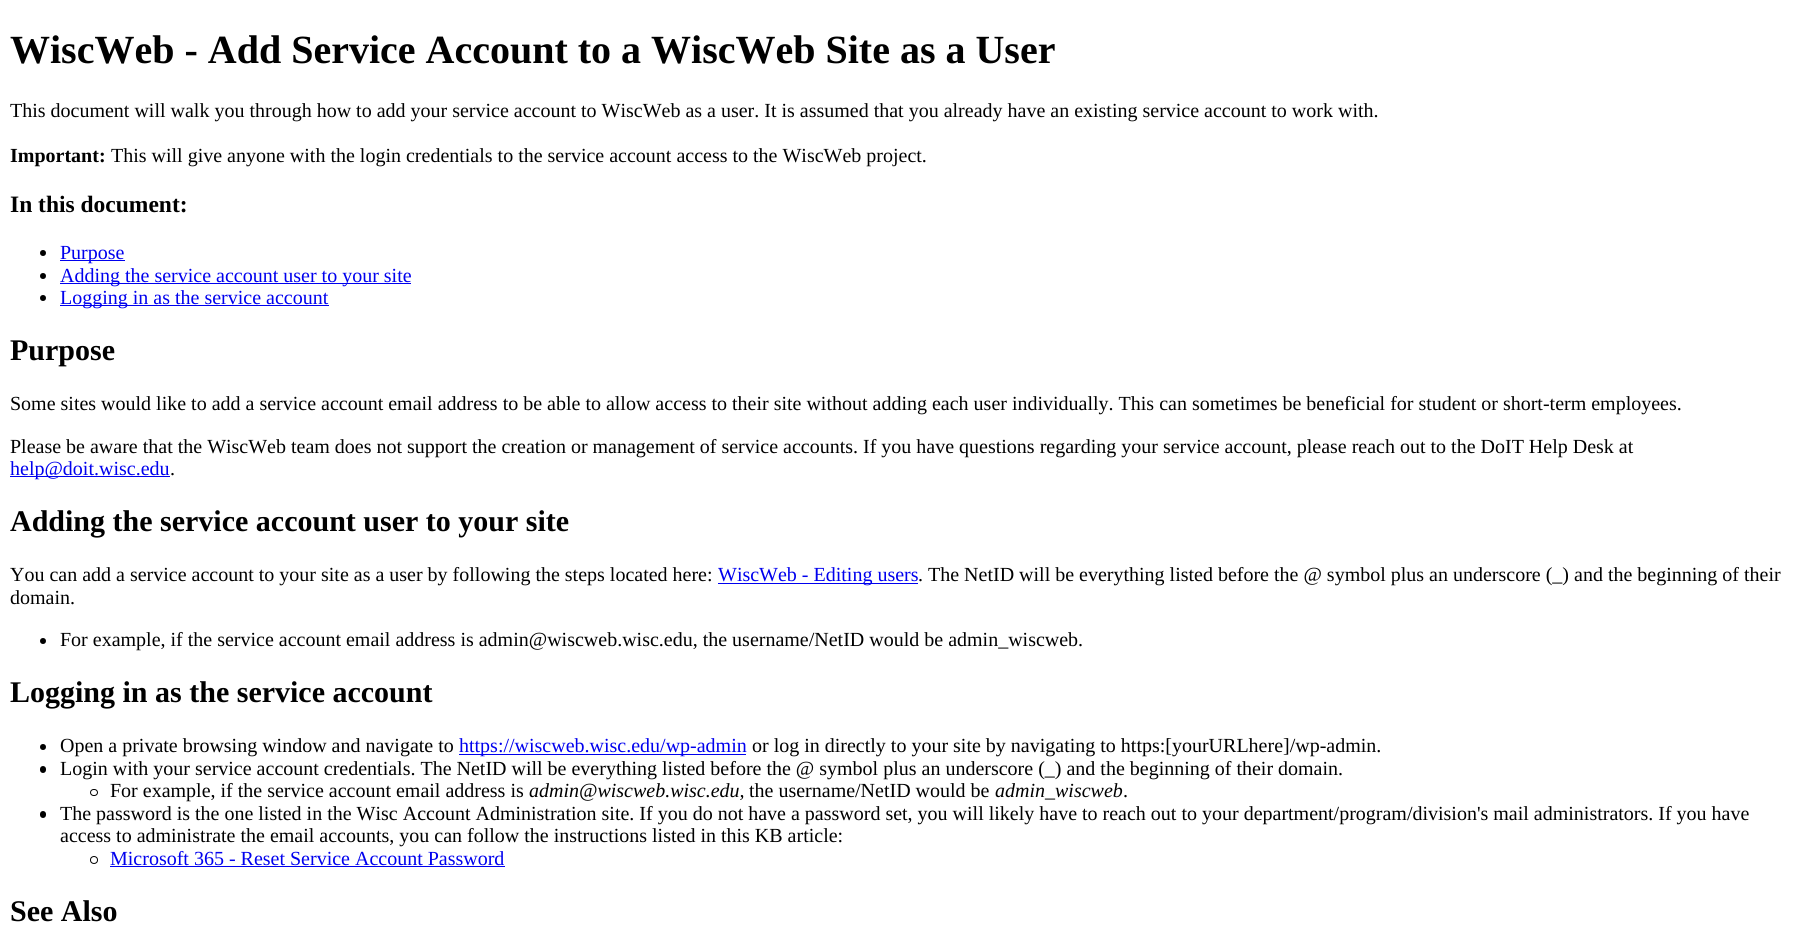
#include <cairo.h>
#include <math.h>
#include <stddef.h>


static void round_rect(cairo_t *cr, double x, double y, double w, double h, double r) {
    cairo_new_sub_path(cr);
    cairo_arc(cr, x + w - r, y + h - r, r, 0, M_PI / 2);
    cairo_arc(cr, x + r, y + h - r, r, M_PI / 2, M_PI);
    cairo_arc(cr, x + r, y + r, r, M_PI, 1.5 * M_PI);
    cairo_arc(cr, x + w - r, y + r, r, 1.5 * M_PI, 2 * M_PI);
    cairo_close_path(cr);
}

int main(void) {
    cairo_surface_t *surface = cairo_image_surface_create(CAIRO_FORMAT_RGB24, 1810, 939);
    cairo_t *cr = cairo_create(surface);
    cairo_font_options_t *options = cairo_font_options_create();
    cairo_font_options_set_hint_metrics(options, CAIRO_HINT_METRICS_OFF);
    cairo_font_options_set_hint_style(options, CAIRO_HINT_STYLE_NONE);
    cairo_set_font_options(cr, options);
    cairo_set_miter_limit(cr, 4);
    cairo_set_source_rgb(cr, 1, 1, 1);
    cairo_paint(cr);
    cairo_select_font_face(cr, "Liberation Serif", CAIRO_FONT_SLANT_NORMAL, CAIRO_FONT_WEIGHT_BOLD);
    cairo_set_font_size(cr, 40);
    cairo_set_source_rgb(cr, 0, 0, 0);
    cairo_move_to(cr, 10, 63);
    cairo_show_text(cr, "WiscWeb - Add Service Account to a WiscWeb Site as a User");
    cairo_select_font_face(cr, "Liberation Serif", CAIRO_FONT_SLANT_NORMAL, CAIRO_FONT_WEIGHT_NORMAL);
    cairo_set_font_size(cr, 20);
    cairo_move_to(cr, 10, 117);
    cairo_show_text(cr, "This document will walk you through how to add your service account to WiscWeb as a user. It is assumed that you already have an existing service account to work with.");
    cairo_select_font_face(cr, "Liberation Serif", CAIRO_FONT_SLANT_NORMAL, CAIRO_FONT_WEIGHT_BOLD);
    cairo_move_to(cr, 10, 162);
    cairo_show_text(cr, "Important:");
    cairo_select_font_face(cr, "Liberation Serif", CAIRO_FONT_SLANT_NORMAL, CAIRO_FONT_WEIGHT_NORMAL);
    cairo_move_to(cr, 111, 162);
    cairo_show_text(cr, "This will give anyone with the login credentials to the service account access to the WiscWeb project.");
    cairo_select_font_face(cr, "Liberation Serif", CAIRO_FONT_SLANT_NORMAL, CAIRO_FONT_WEIGHT_BOLD);
    cairo_set_font_size(cr, 23.5);
    cairo_move_to(cr, 10, 212);
    cairo_show_text(cr, "In this document:");
    cairo_new_path(cr);
    cairo_arc(cr, 43, 253, 3, 0, 2 * M_PI);
    cairo_fill(cr);
    cairo_set_source_rgb(cr, 0, 0, 0.933);
    cairo_rectangle(cr, 60, 260, 65, 1);
    cairo_fill(cr);
    cairo_select_font_face(cr, "Liberation Serif", CAIRO_FONT_SLANT_NORMAL, CAIRO_FONT_WEIGHT_NORMAL);
    cairo_set_font_size(cr, 20);
    cairo_move_to(cr, 60, 259);
    cairo_show_text(cr, "Purpose");
    cairo_set_source_rgb(cr, 0, 0, 0);
    cairo_new_path(cr);
    cairo_arc(cr, 43, 276, 3, 0, 2 * M_PI);
    cairo_fill(cr);
    cairo_set_source_rgb(cr, 0, 0, 0.933);
    cairo_rectangle(cr, 60, 283, 351, 1);
    cairo_fill(cr);
    cairo_move_to(cr, 60, 282);
    cairo_show_text(cr, "Adding the service account user to your site");
    cairo_set_source_rgb(cr, 0, 0, 0);
    cairo_new_path(cr);
    cairo_arc(cr, 43, 298, 3, 0, 2 * M_PI);
    cairo_fill(cr);
    cairo_set_source_rgb(cr, 0, 0, 0.933);
    cairo_rectangle(cr, 60, 305, 269, 1);
    cairo_fill(cr);
    cairo_move_to(cr, 60, 304);
    cairo_show_text(cr, "Logging in as the service account");
    cairo_select_font_face(cr, "Liberation Serif", CAIRO_FONT_SLANT_NORMAL, CAIRO_FONT_WEIGHT_BOLD);
    cairo_set_font_size(cr, 30);
    cairo_set_source_rgb(cr, 0, 0, 0);
    cairo_move_to(cr, 10, 360);
    cairo_show_text(cr, "Purpose");
    cairo_select_font_face(cr, "Liberation Serif", CAIRO_FONT_SLANT_NORMAL, CAIRO_FONT_WEIGHT_NORMAL);
    cairo_set_font_size(cr, 20);
    cairo_move_to(cr, 10, 410);
    cairo_show_text(cr, "Some sites would like to add a service account email address to be able to allow access to their site without adding each user individually. This can sometimes be beneficial for student or short-term employees.");
    cairo_move_to(cr, 10, 453);
    cairo_show_text(cr, "Please be aware that the WiscWeb team does not support the creation or management of service accounts. If you have questions regarding your service account, please reach out to the DoIT Help Desk at");
    cairo_set_source_rgb(cr, 0, 0, 0.933);
    cairo_rectangle(cr, 10, 476, 160, 1);
    cairo_fill(cr);
    cairo_move_to(cr, 10, 475);
    cairo_show_text(cr, "help@doit.wisc.edu");
    cairo_set_source_rgb(cr, 0, 0, 0);
    cairo_move_to(cr, 170, 475);
    cairo_show_text(cr, ".");
    cairo_select_font_face(cr, "Liberation Serif", CAIRO_FONT_SLANT_NORMAL, CAIRO_FONT_WEIGHT_BOLD);
    cairo_set_font_size(cr, 30);
    cairo_move_to(cr, 10, 531);
    cairo_show_text(cr, "Adding the service account user to your site");
    cairo_select_font_face(cr, "Liberation Serif", CAIRO_FONT_SLANT_NORMAL, CAIRO_FONT_WEIGHT_NORMAL);
    cairo_set_font_size(cr, 20);
    cairo_move_to(cr, 10, 581);
    cairo_show_text(cr, "You can add a service account to your site as a user by following the steps located here:");
    cairo_set_source_rgb(cr, 0, 0, 0.933);
    cairo_rectangle(cr, 718, 583, 200, 1);
    cairo_fill(cr);
    cairo_move_to(cr, 718, 581);
    cairo_show_text(cr, "WiscWeb - Editing users");
    cairo_set_source_rgb(cr, 0, 0, 0);
    cairo_move_to(cr, 918, 581);
    cairo_show_text(cr, ". The NetID will be everything listed before the @ symbol plus an underscore (_) and the beginning of their");
    cairo_move_to(cr, 10, 604);
    cairo_show_text(cr, "domain.");
    cairo_new_path(cr);
    cairo_arc(cr, 43, 641, 3, 0, 2 * M_PI);
    cairo_fill(cr);
    cairo_move_to(cr, 60, 646);
    cairo_show_text(cr, "For example, if the service account email address is admin@wiscweb.wisc.edu, the username/NetID would be admin_wiscweb.");
    cairo_select_font_face(cr, "Liberation Serif", CAIRO_FONT_SLANT_NORMAL, CAIRO_FONT_WEIGHT_BOLD);
    cairo_set_font_size(cr, 30);
    cairo_move_to(cr, 10, 702);
    cairo_show_text(cr, "Logging in as the service account");
    cairo_new_path(cr);
    cairo_arc(cr, 43, 747, 3, 0, 2 * M_PI);
    cairo_fill(cr);
    cairo_select_font_face(cr, "Liberation Serif", CAIRO_FONT_SLANT_NORMAL, CAIRO_FONT_WEIGHT_NORMAL);
    cairo_set_font_size(cr, 20);
    cairo_move_to(cr, 60, 752);
    cairo_show_text(cr, "Open a private browsing window and navigate to");
    cairo_set_source_rgb(cr, 0, 0, 0.933);
    cairo_rectangle(cr, 459, 754, 287, 1);
    cairo_fill(cr);
    cairo_move_to(cr, 459, 752);
    cairo_show_text(cr, "https://wiscweb.wisc.edu/wp-admin");
    cairo_set_source_rgb(cr, 0, 0, 0);
    cairo_move_to(cr, 752, 752);
    cairo_show_text(cr, "or log in directly to your site by navigating to https:[yourURLhere]/wp-admin.");
    round_rect(cr, 40, 766, 6, 7, 3);
    cairo_fill(cr);
    cairo_move_to(cr, 60, 775);
    cairo_show_text(cr, "Login with your service account credentials. The NetID will be everything listed before the @ symbol plus an underscore (_) and the beginning of their domain.");
    round_rect(cr, 90.5, 789.5, 7, 6, 3);
    cairo_set_line_width(cr, 1);
    cairo_stroke(cr);
    cairo_move_to(cr, 110, 797);
    cairo_show_text(cr, "For example, if the service account email address is");
    cairo_select_font_face(cr, "Liberation Serif", CAIRO_FONT_SLANT_ITALIC, CAIRO_FONT_WEIGHT_NORMAL);
    cairo_move_to(cr, 529, 797);
    cairo_show_text(cr, "admin@wiscweb.wisc.edu,");
    cairo_select_font_face(cr, "Liberation Serif", CAIRO_FONT_SLANT_NORMAL, CAIRO_FONT_WEIGHT_NORMAL);
    cairo_move_to(cr, 749, 797);
    cairo_show_text(cr, "the username/NetID would be");
    cairo_select_font_face(cr, "Liberation Serif", CAIRO_FONT_SLANT_ITALIC, CAIRO_FONT_WEIGHT_NORMAL);
    cairo_move_to(cr, 995, 797);
    cairo_show_text(cr, "admin_wiscweb");
    cairo_select_font_face(cr, "Liberation Serif", CAIRO_FONT_SLANT_NORMAL, CAIRO_FONT_WEIGHT_NORMAL);
    cairo_move_to(cr, 1123, 797);
    cairo_show_text(cr, ".");
    round_rect(cr, 40, 811, 6, 7, 3);
    cairo_fill(cr);
    cairo_move_to(cr, 60, 820);
    cairo_show_text(cr, "The password is the one listed in the Wisc Account Administration site. If you do not have a password set, you will likely have to reach out to your department/program/division's mail administrators. If you have");
    cairo_move_to(cr, 60, 842);
    cairo_show_text(cr, "access to administrate the email accounts, you can follow the instructions listed in this KB article:");
    cairo_new_path(cr);
    cairo_arc(cr, 94, 860, 3.5, 0, 2 * M_PI);
    cairo_stroke(cr);
    cairo_set_source_rgb(cr, 0, 0, 0.933);
    cairo_move_to(cr, 110, 865);
    cairo_show_text(cr, "Microsoft 365 - Reset Service Account Password");
    cairo_rectangle(cr, 110, 866, 395, 1);
    cairo_fill(cr);
    cairo_select_font_face(cr, "Liberation Serif", CAIRO_FONT_SLANT_NORMAL, CAIRO_FONT_WEIGHT_BOLD);
    cairo_set_font_size(cr, 30);
    cairo_set_source_rgb(cr, 0, 0, 0);
    cairo_move_to(cr, 10, 921);
    cairo_show_text(cr, "See Also");
    cairo_surface_write_to_png(surface, "page.png");
    cairo_font_options_destroy(options);
    cairo_destroy(cr);
    cairo_surface_destroy(surface);
    return 0;
}
